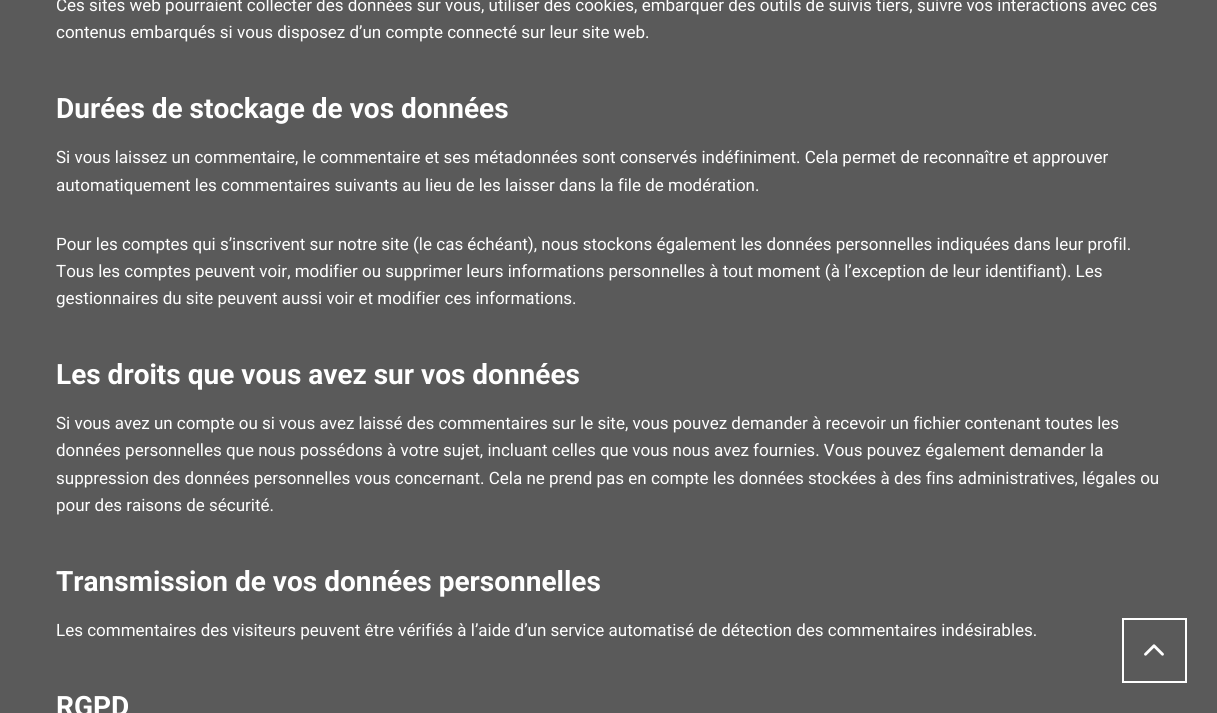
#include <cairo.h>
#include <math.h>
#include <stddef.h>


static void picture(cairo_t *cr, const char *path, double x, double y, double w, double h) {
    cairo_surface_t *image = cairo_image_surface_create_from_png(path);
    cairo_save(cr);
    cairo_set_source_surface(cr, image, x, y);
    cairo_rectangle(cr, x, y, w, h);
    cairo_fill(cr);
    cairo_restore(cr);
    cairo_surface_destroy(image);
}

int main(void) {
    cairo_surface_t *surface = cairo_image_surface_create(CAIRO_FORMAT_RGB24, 1217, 713);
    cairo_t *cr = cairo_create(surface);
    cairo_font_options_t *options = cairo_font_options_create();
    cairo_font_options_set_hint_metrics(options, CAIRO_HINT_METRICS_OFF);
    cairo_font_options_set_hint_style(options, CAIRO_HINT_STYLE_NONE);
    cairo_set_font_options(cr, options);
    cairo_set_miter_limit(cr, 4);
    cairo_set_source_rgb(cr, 0.353, 0.353, 0.353);
    cairo_paint(cr);
    cairo_select_font_face(cr, "Roboto", CAIRO_FONT_SLANT_NORMAL, CAIRO_FONT_WEIGHT_NORMAL);
    cairo_set_font_size(cr, 17);
    cairo_set_source_rgb(cr, 1, 1, 1);
    cairo_move_to(cr, 56, 11);
    cairo_show_text(cr, "Ces sites web pourraient collecter des données sur vous, utiliser des cookies, embarquer des outils de suivis tiers, suivre vos interactions avec ces");
    cairo_move_to(cr, 56, 38);
    cairo_show_text(cr, "contenus embarqués si vous disposez d’un compte connecté sur leur site web.");
    cairo_select_font_face(cr, "Roboto", CAIRO_FONT_SLANT_NORMAL, CAIRO_FONT_WEIGHT_BOLD);
    cairo_set_font_size(cr, 28);
    cairo_move_to(cr, 56, 118);
    cairo_show_text(cr, "Durées de stockage de vos données");
    cairo_select_font_face(cr, "Roboto", CAIRO_FONT_SLANT_NORMAL, CAIRO_FONT_WEIGHT_NORMAL);
    cairo_set_font_size(cr, 17);
    cairo_move_to(cr, 56, 163);
    cairo_show_text(cr, "Si vous laissez un commentaire, le commentaire et ses métadonnées sont conservés indéfiniment. Cela permet de reconnaître et approuver");
    cairo_move_to(cr, 56, 191);
    cairo_show_text(cr, "automatiquement les commentaires suivants au lieu de les laisser dans la file de modération.");
    cairo_move_to(cr, 56, 250);
    cairo_show_text(cr, "Pour les comptes qui s’inscrivent sur notre site (le cas échéant), nous stockons également les données personnelles indiquées dans leur profil.");
    cairo_move_to(cr, 56, 277);
    cairo_show_text(cr, "Tous les comptes peuvent voir, modifier ou supprimer leurs informations personnelles à tout moment (à l’exception de leur identifiant). Les");
    cairo_move_to(cr, 56, 304);
    cairo_show_text(cr, "gestionnaires du site peuvent aussi voir et modifier ces informations.");
    cairo_select_font_face(cr, "Roboto", CAIRO_FONT_SLANT_NORMAL, CAIRO_FONT_WEIGHT_BOLD);
    cairo_set_font_size(cr, 28);
    cairo_move_to(cr, 56, 384);
    cairo_show_text(cr, "Les droits que vous avez sur vos données");
    cairo_select_font_face(cr, "Roboto", CAIRO_FONT_SLANT_NORMAL, CAIRO_FONT_WEIGHT_NORMAL);
    cairo_set_font_size(cr, 17);
    cairo_move_to(cr, 56, 429);
    cairo_show_text(cr, "Si vous avez un compte ou si vous avez laissé des commentaires sur le site, vous pouvez demander à recevoir un fichier contenant toutes les");
    cairo_move_to(cr, 56, 456);
    cairo_show_text(cr, "données personnelles que nous possédons à votre sujet, incluant celles que vous nous avez fournies. Vous pouvez également demander la");
    cairo_move_to(cr, 56, 484);
    cairo_show_text(cr, "suppression des données personnelles vous concernant. Cela ne prend pas en compte les données stockées à des fins administratives, légales ou");
    cairo_move_to(cr, 56, 511);
    cairo_show_text(cr, "pour des raisons de sécurité.");
    cairo_select_font_face(cr, "Roboto", CAIRO_FONT_SLANT_NORMAL, CAIRO_FONT_WEIGHT_BOLD);
    cairo_set_font_size(cr, 28);
    cairo_move_to(cr, 56, 591);
    cairo_show_text(cr, "Transmission de vos données personnelles");
    cairo_select_font_face(cr, "Roboto", CAIRO_FONT_SLANT_NORMAL, CAIRO_FONT_WEIGHT_NORMAL);
    cairo_set_font_size(cr, 17);
    cairo_move_to(cr, 56, 636);
    cairo_show_text(cr, "Les commentaires des visiteurs peuvent être vérifiés à l’aide d’un service automatisé de détection des commentaires indésirables.");
    cairo_select_font_face(cr, "Roboto", CAIRO_FONT_SLANT_NORMAL, CAIRO_FONT_WEIGHT_BOLD);
    cairo_set_font_size(cr, 28);
    cairo_move_to(cr, 56, 716);
    cairo_show_text(cr, "RGPD");
    cairo_rectangle(cr, 1123, 619, 63, 63);
    cairo_stroke(cr);
    picture(cr, "img1.png", 1144, 644, 20, 12);
    cairo_surface_write_to_png(surface, "page.png");
    cairo_font_options_destroy(options);
    cairo_destroy(cr);
    cairo_surface_destroy(surface);
    return 0;
}
